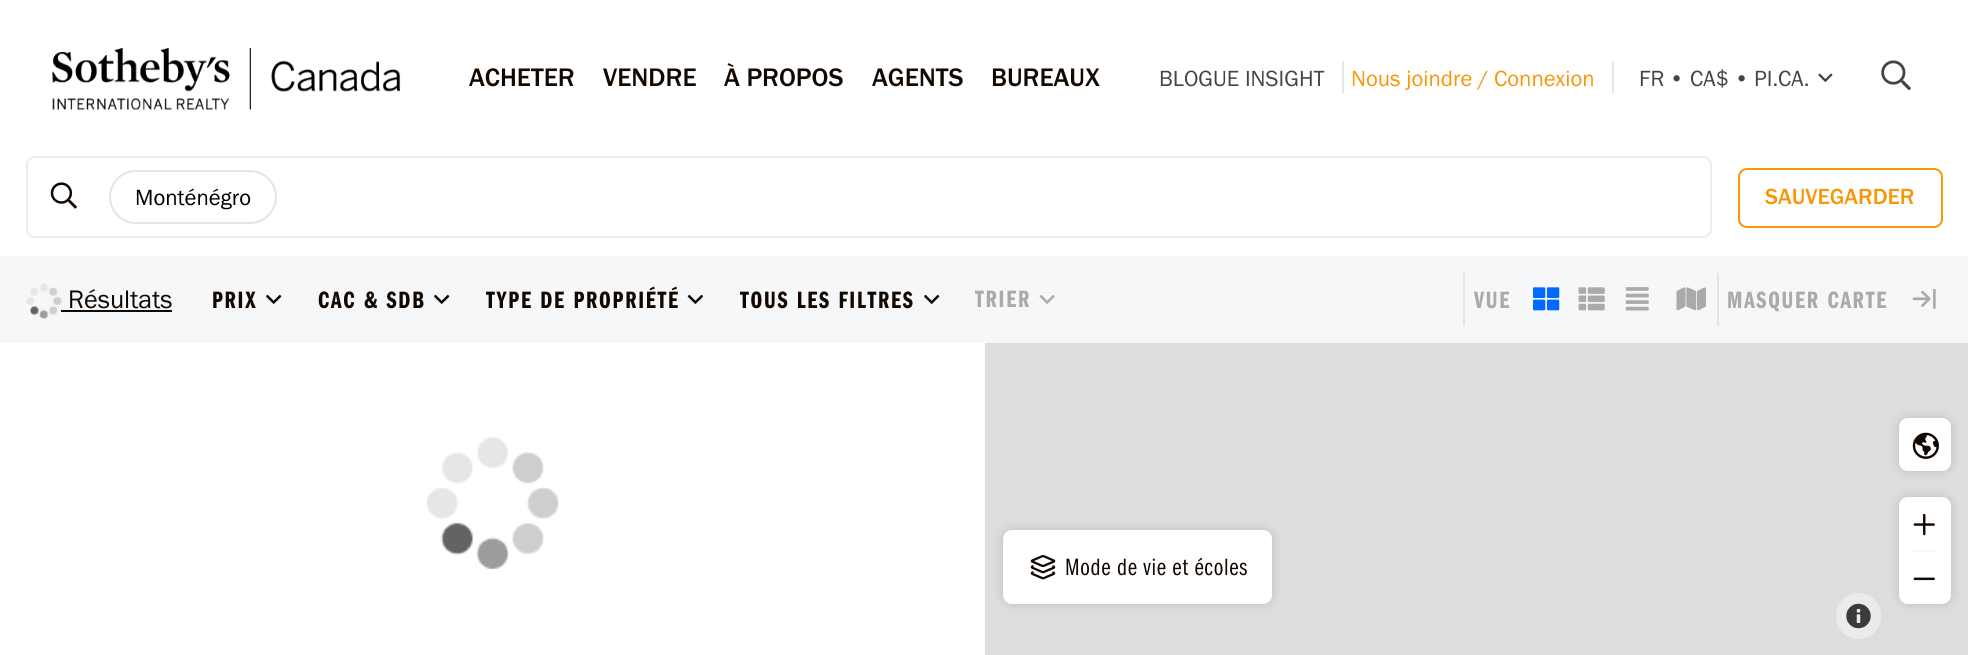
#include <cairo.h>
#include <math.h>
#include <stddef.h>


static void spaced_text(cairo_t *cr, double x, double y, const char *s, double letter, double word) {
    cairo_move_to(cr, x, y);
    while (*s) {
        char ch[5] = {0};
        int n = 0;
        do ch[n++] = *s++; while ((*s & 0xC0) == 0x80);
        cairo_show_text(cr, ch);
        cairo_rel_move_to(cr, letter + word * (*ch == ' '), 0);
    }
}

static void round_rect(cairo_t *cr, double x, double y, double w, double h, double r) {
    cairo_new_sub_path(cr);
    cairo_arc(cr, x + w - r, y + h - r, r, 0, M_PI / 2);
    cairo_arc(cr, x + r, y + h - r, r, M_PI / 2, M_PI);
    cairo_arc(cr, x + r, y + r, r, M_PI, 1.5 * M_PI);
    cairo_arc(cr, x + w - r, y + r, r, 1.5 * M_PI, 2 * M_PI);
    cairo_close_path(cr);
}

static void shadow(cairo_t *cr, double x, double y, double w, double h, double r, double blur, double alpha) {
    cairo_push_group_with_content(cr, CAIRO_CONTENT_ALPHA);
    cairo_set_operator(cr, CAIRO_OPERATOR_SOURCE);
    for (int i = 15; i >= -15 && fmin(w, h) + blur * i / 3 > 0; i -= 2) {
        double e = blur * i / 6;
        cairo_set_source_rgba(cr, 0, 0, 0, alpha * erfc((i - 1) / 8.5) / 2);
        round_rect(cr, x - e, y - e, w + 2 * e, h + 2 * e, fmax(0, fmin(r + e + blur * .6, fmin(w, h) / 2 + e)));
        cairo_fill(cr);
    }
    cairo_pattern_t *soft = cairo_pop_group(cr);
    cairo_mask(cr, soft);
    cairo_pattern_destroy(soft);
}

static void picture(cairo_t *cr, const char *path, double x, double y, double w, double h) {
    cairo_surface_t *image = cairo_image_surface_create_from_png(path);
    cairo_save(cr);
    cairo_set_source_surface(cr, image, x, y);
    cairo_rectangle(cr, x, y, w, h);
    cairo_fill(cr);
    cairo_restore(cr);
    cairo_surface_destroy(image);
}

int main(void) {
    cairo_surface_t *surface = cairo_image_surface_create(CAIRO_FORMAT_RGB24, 1968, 655);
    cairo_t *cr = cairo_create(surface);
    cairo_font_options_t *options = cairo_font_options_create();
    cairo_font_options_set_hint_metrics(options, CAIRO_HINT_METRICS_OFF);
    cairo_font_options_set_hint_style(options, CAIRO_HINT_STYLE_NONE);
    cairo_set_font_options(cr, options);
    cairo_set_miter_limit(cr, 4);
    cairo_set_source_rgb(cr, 1, 1, 1);
    cairo_paint(cr);
    picture(cr, "img1.png", 52, 48, 349, 62);
    cairo_select_font_face(cr, "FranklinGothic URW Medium", CAIRO_FONT_SLANT_NORMAL, CAIRO_FONT_WEIGHT_NORMAL);
    cairo_set_font_size(cr, 26.25);
    cairo_set_source_rgb(cr, 0.071, 0.035, 0);
    cairo_move_to(cr, 469, 86);
    cairo_show_text(cr, "ACHETER");
    cairo_move_to(cr, 603, 86);
    cairo_show_text(cr, "VENDRE");
    cairo_move_to(cr, 724, 86);
    cairo_show_text(cr, "À PROPOS");
    cairo_move_to(cr, 872, 86);
    cairo_show_text(cr, "AGENTS");
    cairo_move_to(cr, 991, 86);
    cairo_show_text(cr, "BUREAUX");
    cairo_select_font_face(cr, "FranklinGothic URW", CAIRO_FONT_SLANT_NORMAL, CAIRO_FONT_WEIGHT_NORMAL);
    cairo_set_font_size(cr, 22.75);
    cairo_set_source_rgb(cr, 0.267, 0.267, 0.267);
    cairo_move_to(cr, 1159, 86);
    cairo_show_text(cr, "BLOGUE INSIGHT");
    cairo_set_source_rgb(cr, 0.894, 0.894, 0.894);
    cairo_rectangle(cr, 1342, 61, 2, 32);
    cairo_fill(cr);
    cairo_set_source_rgb(cr, 0.973, 0.588, 0.035);
    cairo_move_to(cr, 1351, 86);
    cairo_show_text(cr, "Nous joindre / Connexion");
    cairo_set_source_rgb(cr, 0.894, 0.894, 0.894);
    cairo_rectangle(cr, 1612, 61, 2, 32);
    cairo_fill(cr);
    cairo_set_source_rgb(cr, 0.267, 0.267, 0.267);
    cairo_move_to(cr, 1639, 86);
    cairo_show_text(cr, "FR");
    cairo_move_to(cr, 1669, 86);
    cairo_show_text(cr, "•");
    cairo_move_to(cr, 1690, 86);
    cairo_show_text(cr, "CA$");
    cairo_move_to(cr, 1734, 86);
    cairo_show_text(cr, "•");
    cairo_move_to(cr, 1754, 86);
    cairo_show_text(cr, "PI.CA.");
    picture(cr, "img2.png", 1818, 73, 15, 9);
    picture(cr, "img3.png", 1881, 60, 30, 31);
    round_rect(cr, 27, 157, 1684, 80, 8);
    cairo_set_source_rgb(cr, 0.922, 0.922, 0.922);
    cairo_stroke(cr);
    picture(cr, "img4.png", 50, 182, 27, 27);
    round_rect(cr, 110, 171, 166, 52, 26);
    cairo_set_source_rgb(cr, 0.894, 0.894, 0.894);
    cairo_stroke(cr);
    cairo_set_source_rgb(cr, 0, 0, 0);
    cairo_move_to(cr, 135, 205);
    cairo_show_text(cr, "Monténégro");
    round_rect(cr, 1739, 169, 203, 58, 8);
    cairo_set_source_rgb(cr, 0.973, 0.588, 0.035);
    cairo_stroke(cr);
    cairo_select_font_face(cr, "FranklinGothic URW Medium", CAIRO_FONT_SLANT_NORMAL, CAIRO_FONT_WEIGHT_NORMAL);
    cairo_move_to(cr, 1765, 204);
    cairo_show_text(cr, "SAUVEGARDER");
    cairo_set_source_rgb(cr, 0.961, 0.965, 0.969);
    cairo_rectangle(cr, 0, 256, 1968, 87);
    cairo_fill(cr);
    picture(cr, "img5.png", 26, 283, 36, 36);
    cairo_select_font_face(cr, "FranklinGothic URW", CAIRO_FONT_SLANT_NORMAL, CAIRO_FONT_WEIGHT_NORMAL);
    cairo_set_font_size(cr, 26.25);
    cairo_set_source_rgb(cr, 0.071, 0.035, 0);
    cairo_move_to(cr, 68, 308);
    cairo_show_text(cr, "Résultats");
    cairo_rectangle(cr, 61, 310, 111, 2);
    cairo_fill(cr);
    cairo_select_font_face(cr, "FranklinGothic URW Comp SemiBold", CAIRO_FONT_SLANT_NORMAL, CAIRO_FONT_WEIGHT_NORMAL);
    cairo_set_font_size(cr, 24.5);
    spaced_text(cr, 212, 308, "PRIX", 1.75, 0);
    picture(cr, "img6.png", 266, 294, 16, 10);
    spaced_text(cr, 318, 308, "CAC & SDB", 1.75, 0);
    picture(cr, "img6.png", 434, 294, 16, 10);
    spaced_text(cr, 486, 308, "TYPE DE PROPRIÉTÉ", 1.75, 0);
    picture(cr, "img7.png", 687, 294, 16, 10);
    spaced_text(cr, 740, 308, "TOUS LES FILTRES", 1.75, 0);
    picture(cr, "img6.png", 924, 294, 16, 10);
    cairo_set_source_rgb(cr, 0.667, 0.667, 0.667);
    spaced_text(cr, 975, 307, "TRIER", 1.75, 0);
    picture(cr, "img8.png", 1039, 295, 16, 9);
    cairo_set_source_rgb(cr, 0.894, 0.894, 0.894);
    cairo_rectangle(cr, 1463, 273, 2, 53);
    cairo_fill(cr);
    cairo_set_source_rgb(cr, 0.667, 0.667, 0.667);
    spaced_text(cr, 1474, 308, "VUE", 1.75, 0);
    picture(cr, "img9.png", 1533, 287, 27, 24);
    picture(cr, "img10.png", 1578, 287, 27, 24);
    picture(cr, "img11.png", 1625, 287, 24, 24);
    picture(cr, "img12.png", 1676, 287, 30, 24);
    cairo_set_source_rgb(cr, 0.894, 0.894, 0.894);
    cairo_rectangle(cr, 1717, 273, 2, 53);
    cairo_fill(cr);
    cairo_set_source_rgb(cr, 0.667, 0.667, 0.667);
    spaced_text(cr, 1727, 308, "MASQUER CARTE", 1.75, 0);
    picture(cr, "img13.png", 1912, 289, 24, 20);
    picture(cr, "img14.png", 427, 437, 132, 132);
    cairo_set_source_rgb(cr, 0.867, 0.867, 0.867);
    cairo_rectangle(cr, 985, 343, 983, 312);
    cairo_fill(cr);
    cairo_set_source_rgb(cr, 0.918, 0.918, 0.918);
    round_rect(cr, 1836, 593, 45, 46, 22.5);
    cairo_fill(cr);
    picture(cr, "img15.png", 1846, 603, 25, 26);
    cairo_set_source_rgb(cr, 0, 0, 0);
    shadow(cr, 1003, 530, 269, 74, 9, 5, 0.15);
    cairo_set_source_rgb(cr, 1, 1, 1);
    round_rect(cr, 1003, 530, 269, 74, 9);
    cairo_fill(cr);
    picture(cr, "img16.png", 1030, 555, 26, 25);
    cairo_select_font_face(cr, "FranklinGothic URW Comp", CAIRO_FONT_SLANT_NORMAL, CAIRO_FONT_WEIGHT_NORMAL);
    cairo_set_source_rgb(cr, 0.071, 0.035, 0);
    spaced_text(cr, 1065, 575, "Mode de vie et écoles", 0.7, 0);
    cairo_set_source_rgb(cr, 0, 0, 0);
    shadow(cr, 1899, 418, 52, 53, 9, 5, 0.15);
    cairo_set_source_rgb(cr, 1, 1, 1);
    round_rect(cr, 1899, 418, 52, 53, 9);
    cairo_fill(cr);
    picture(cr, "img17.png", 1912, 432, 27, 27);
    cairo_set_source_rgb(cr, 0, 0, 0);
    shadow(cr, 1899, 497, 52, 107, 9, 5, 0.15);
    cairo_set_source_rgb(cr, 1, 1, 1);
    round_rect(cr, 1899, 497, 52, 107, 9);
    cairo_fill(cr);
    picture(cr, "img18.png", 1913, 513, 22, 23);
    cairo_set_source_rgb(cr, 0.961, 0.965, 0.969);
    cairo_rectangle(cr, 1913, 550, 24, 2);
    cairo_fill(cr);
    picture(cr, "img19.png", 1913, 577, 22, 4);
    cairo_surface_write_to_png(surface, "page.png");
    cairo_font_options_destroy(options);
    cairo_destroy(cr);
    cairo_surface_destroy(surface);
    return 0;
}
